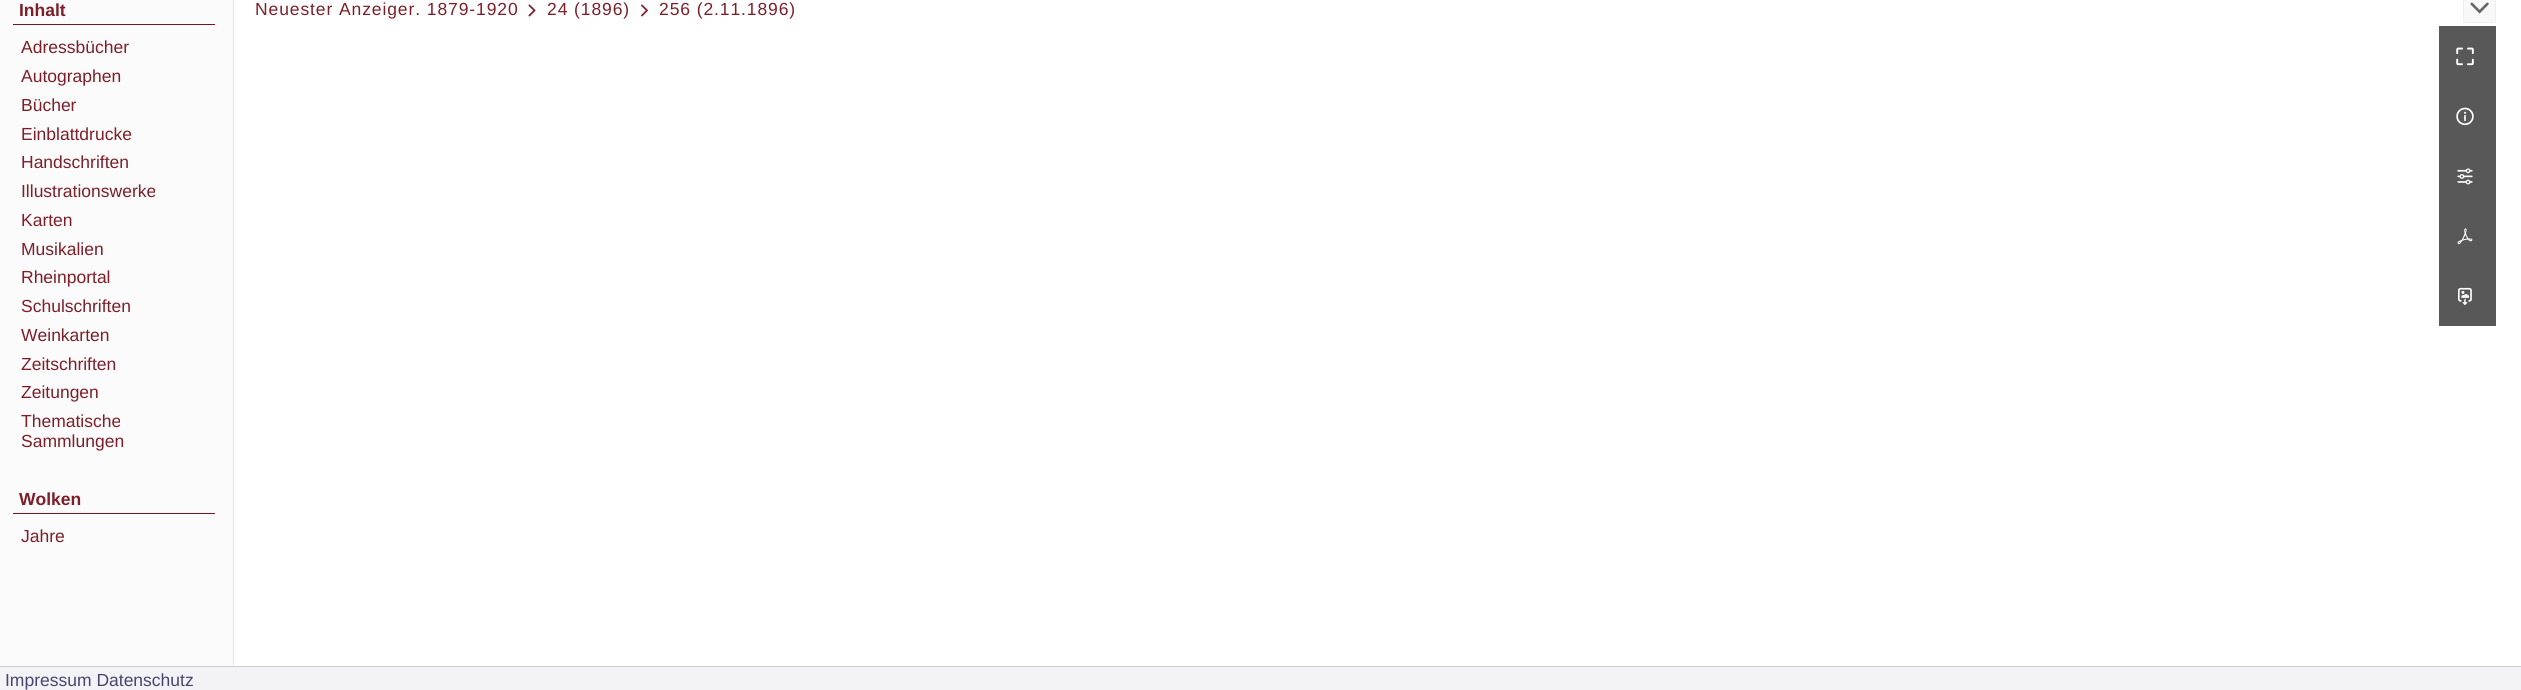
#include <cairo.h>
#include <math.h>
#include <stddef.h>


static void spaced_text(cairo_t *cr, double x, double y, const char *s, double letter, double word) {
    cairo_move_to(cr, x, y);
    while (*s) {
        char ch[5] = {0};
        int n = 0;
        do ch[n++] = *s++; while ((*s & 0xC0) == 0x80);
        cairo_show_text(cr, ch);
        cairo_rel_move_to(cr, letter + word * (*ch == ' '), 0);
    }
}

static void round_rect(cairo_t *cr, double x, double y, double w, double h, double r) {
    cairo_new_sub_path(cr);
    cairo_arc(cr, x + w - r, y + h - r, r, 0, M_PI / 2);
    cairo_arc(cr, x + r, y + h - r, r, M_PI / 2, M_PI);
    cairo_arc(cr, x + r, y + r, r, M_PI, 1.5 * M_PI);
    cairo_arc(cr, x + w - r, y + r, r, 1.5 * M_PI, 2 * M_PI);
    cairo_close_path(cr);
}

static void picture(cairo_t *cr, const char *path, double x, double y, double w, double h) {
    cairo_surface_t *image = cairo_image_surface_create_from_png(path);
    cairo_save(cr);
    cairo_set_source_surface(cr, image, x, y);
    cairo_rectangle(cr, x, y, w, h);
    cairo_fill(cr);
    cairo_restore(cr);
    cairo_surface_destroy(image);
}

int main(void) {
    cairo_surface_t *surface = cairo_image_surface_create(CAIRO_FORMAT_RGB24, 2521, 690);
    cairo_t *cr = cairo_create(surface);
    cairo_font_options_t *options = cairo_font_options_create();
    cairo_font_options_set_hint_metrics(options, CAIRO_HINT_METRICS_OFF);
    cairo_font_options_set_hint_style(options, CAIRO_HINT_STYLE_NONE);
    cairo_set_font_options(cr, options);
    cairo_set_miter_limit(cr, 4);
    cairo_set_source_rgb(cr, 1, 1, 1);
    cairo_paint(cr);
    cairo_set_source_rgb(cr, 0.984, 0.984, 0.984);
    cairo_rectangle(cr, 0, 0, 233, 666);
    cairo_fill(cr);
    cairo_set_source_rgb(cr, 0.906, 0.906, 0.906);
    cairo_rectangle(cr, 233, 0, 1, 666);
    cairo_fill(cr);
    cairo_set_source_rgb(cr, 0.49, 0.078, 0.118);
    cairo_rectangle(cr, 13, 24, 202, 1);
    cairo_fill(cr);
    cairo_select_font_face(cr, "Liberation Sans", CAIRO_FONT_SLANT_NORMAL, CAIRO_FONT_WEIGHT_BOLD);
    cairo_set_font_size(cr, 17.5);
    cairo_set_source_rgb(cr, 0.494, 0.118, 0.161);
    cairo_move_to(cr, 19, 16);
    cairo_show_text(cr, "Inhalt");
    cairo_select_font_face(cr, "Liberation Sans", CAIRO_FONT_SLANT_NORMAL, CAIRO_FONT_WEIGHT_NORMAL);
    cairo_move_to(cr, 21, 53);
    cairo_show_text(cr, "Adressbücher");
    cairo_move_to(cr, 21, 82);
    cairo_show_text(cr, "Autographen");
    cairo_move_to(cr, 21, 111);
    cairo_show_text(cr, "Bücher");
    cairo_move_to(cr, 21, 140);
    cairo_show_text(cr, "Einblattdrucke");
    cairo_move_to(cr, 21, 168);
    cairo_show_text(cr, "Handschriften");
    cairo_move_to(cr, 21, 197);
    cairo_show_text(cr, "Illustrationswerke");
    cairo_move_to(cr, 21, 226);
    cairo_show_text(cr, "Karten");
    cairo_move_to(cr, 21, 255);
    cairo_show_text(cr, "Musikalien");
    cairo_move_to(cr, 21, 283);
    cairo_show_text(cr, "Rheinportal");
    cairo_move_to(cr, 21, 312);
    cairo_show_text(cr, "Schulschriften");
    cairo_move_to(cr, 21, 341);
    cairo_show_text(cr, "Weinkarten");
    cairo_move_to(cr, 21, 370);
    cairo_show_text(cr, "Zeitschriften");
    cairo_move_to(cr, 21, 398);
    cairo_show_text(cr, "Zeitungen");
    cairo_move_to(cr, 21, 427);
    cairo_show_text(cr, "Thematische");
    cairo_move_to(cr, 21, 447);
    cairo_show_text(cr, "Sammlungen");
    cairo_set_source_rgb(cr, 0.49, 0.078, 0.118);
    cairo_rectangle(cr, 13, 513, 202, 1);
    cairo_fill(cr);
    cairo_select_font_face(cr, "Liberation Sans", CAIRO_FONT_SLANT_NORMAL, CAIRO_FONT_WEIGHT_BOLD);
    cairo_set_source_rgb(cr, 0.494, 0.118, 0.161);
    cairo_move_to(cr, 19, 505);
    cairo_show_text(cr, "Wolken");
    cairo_select_font_face(cr, "Liberation Sans", CAIRO_FONT_SLANT_NORMAL, CAIRO_FONT_WEIGHT_NORMAL);
    cairo_move_to(cr, 21, 542);
    cairo_show_text(cr, "Jahre");
    spaced_text(cr, 255, 15, "Neuester Anzeiger. 1879-1920", 0.9, 0);
    picture(cr, "img1.png", 528, 4, 8, 13);
    spaced_text(cr, 547, 15, "24 (1896)", 0.9, 0);
    picture(cr, "img2.png", 641, 4, 8, 13);
    spaced_text(cr, 659, 15, "256 (2.11.1896)", 0.9, 0);
    cairo_set_source_rgb(cr, 0.969, 0.969, 0.973);
    round_rect(cr, 2463.5, -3.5, 32, 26, 2);
    cairo_fill_preserve(cr);
    cairo_set_source_rgb(cr, 0.933, 0.933, 0.933);
    cairo_set_line_width(cr, 1);
    cairo_stroke(cr);
    picture(cr, "img3.png", 2470, 2, 19, 12);
    cairo_set_source_rgb(cr, 0.345, 0.345, 0.345);
    cairo_rectangle(cr, 2439, 26, 57, 300);
    cairo_fill(cr);
    picture(cr, "img4.png", 2456, 47, 18, 19);
    picture(cr, "img5.png", 2456, 107, 18, 19);
    picture(cr, "img6.png", 2457, 168, 16, 17);
    picture(cr, "img7.png", 2457, 228, 16, 17);
    picture(cr, "img8.png", 2458, 287, 14, 18);
    cairo_set_source_rgb(cr, 0.953, 0.953, 0.965);
    cairo_rectangle(cr, 0, 667, 2521, 23);
    cairo_fill(cr);
    cairo_set_source_rgb(cr, 0.8, 0.8, 0.8);
    cairo_rectangle(cr, 0, 666, 2521, 1);
    cairo_fill(cr);
    cairo_set_source_rgb(cr, 0.278, 0.271, 0.427);
    cairo_move_to(cr, 5, 686);
    cairo_show_text(cr, "Impressum Datenschutz");
    cairo_surface_write_to_png(surface, "page.png");
    cairo_font_options_destroy(options);
    cairo_destroy(cr);
    cairo_surface_destroy(surface);
    return 0;
}
